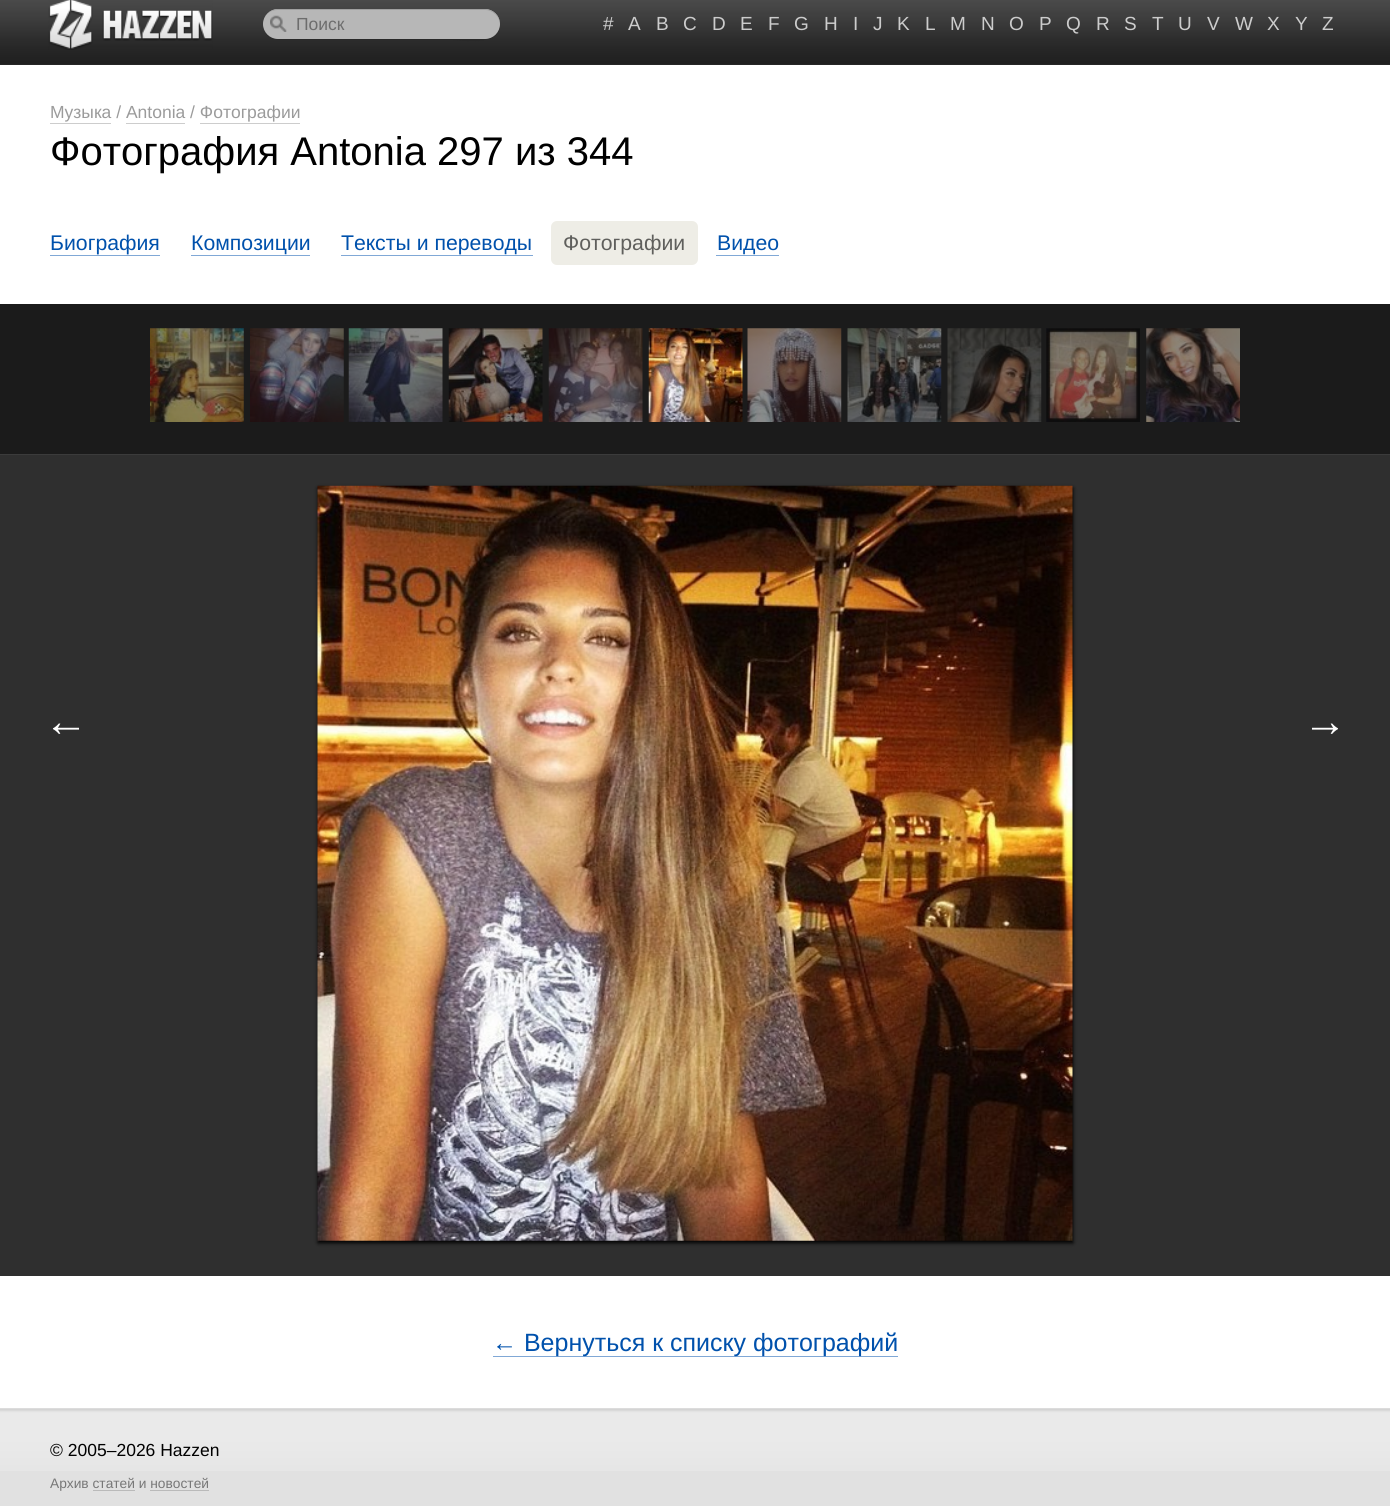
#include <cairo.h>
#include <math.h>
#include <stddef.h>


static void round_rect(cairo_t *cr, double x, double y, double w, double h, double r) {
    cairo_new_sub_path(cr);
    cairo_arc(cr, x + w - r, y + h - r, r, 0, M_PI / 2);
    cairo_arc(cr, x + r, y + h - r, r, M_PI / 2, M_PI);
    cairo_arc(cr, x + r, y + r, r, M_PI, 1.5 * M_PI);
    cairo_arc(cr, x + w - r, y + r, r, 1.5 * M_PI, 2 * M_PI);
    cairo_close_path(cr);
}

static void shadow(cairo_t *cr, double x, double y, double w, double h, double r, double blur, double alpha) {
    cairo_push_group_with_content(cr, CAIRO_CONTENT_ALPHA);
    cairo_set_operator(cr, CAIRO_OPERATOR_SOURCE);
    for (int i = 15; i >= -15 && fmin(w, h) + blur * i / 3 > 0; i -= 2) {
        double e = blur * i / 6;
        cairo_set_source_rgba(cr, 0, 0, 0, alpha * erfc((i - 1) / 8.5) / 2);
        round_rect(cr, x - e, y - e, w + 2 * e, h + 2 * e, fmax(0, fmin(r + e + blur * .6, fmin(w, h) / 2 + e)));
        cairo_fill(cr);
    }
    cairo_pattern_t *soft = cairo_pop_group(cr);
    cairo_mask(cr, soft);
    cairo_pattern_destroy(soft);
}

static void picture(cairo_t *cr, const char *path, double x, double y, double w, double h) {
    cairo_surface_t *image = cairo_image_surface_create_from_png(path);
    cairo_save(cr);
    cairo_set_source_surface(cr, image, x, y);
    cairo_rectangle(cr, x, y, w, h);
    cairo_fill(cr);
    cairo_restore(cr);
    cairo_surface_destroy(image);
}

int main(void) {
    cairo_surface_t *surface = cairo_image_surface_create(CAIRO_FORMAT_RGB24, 1390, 1506);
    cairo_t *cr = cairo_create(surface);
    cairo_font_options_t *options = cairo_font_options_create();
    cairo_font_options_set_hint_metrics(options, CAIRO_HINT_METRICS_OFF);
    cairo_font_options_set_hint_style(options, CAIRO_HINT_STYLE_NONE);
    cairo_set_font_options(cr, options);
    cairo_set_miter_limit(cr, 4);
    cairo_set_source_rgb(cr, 1, 1, 1);
    cairo_paint(cr);
    cairo_set_source_rgb(cr, 0.173, 0.173, 0.173);
    cairo_rectangle(cr, 0, 64, 1390, 1);
    cairo_fill(cr);
    picture(cr, "img1.png", 0, 0, 1390, 65);
    picture(cr, "img2.png", 48, 0, 165, 50);
    cairo_set_source_rgb(cr, 0.161, 0.161, 0.161);
    cairo_new_path(cr);
    cairo_move_to(cr, 264, 30);
    cairo_curve_to(cr, 266, 36, 272, 40, 278, 40);
    cairo_line_to(cr, 450, 40);
    cairo_curve_to(cr, 460, 40, 501, 48, 500, 24);
    cairo_curve_to(cr, 500, 32, 493, 39, 485, 39);
    cairo_line_to(cr, 278, 39);
    cairo_curve_to(cr, 271, 39, 266, 35, 264, 30);
    cairo_close_path(cr);
    cairo_fill(cr);
    cairo_set_source_rgb(cr, 0.718, 0.718, 0.718);
    round_rect(cr, 263, 9, 237, 30, 15);
    cairo_fill(cr);
    cairo_set_source_rgb(cr, 0.627, 0.627, 0.627);
    cairo_new_path(cr);
    cairo_move_to(cr, 278, 10);
    cairo_line_to(cr, 485, 10);
    cairo_curve_to(cr, 493, 10, 500, 17, 500, 25);
    cairo_line_to(cr, 500, 24);
    cairo_curve_to(cr, 500, 16, 493, 9, 485, 9);
    cairo_line_to(cr, 278, 9);
    cairo_curve_to(cr, 273, 9, 268, 12, 266, 16);
    cairo_curve_to(cr, 268, 12, 273, 10, 278, 10);
    cairo_close_path(cr);
    cairo_fill(cr);
    picture(cr, "img3.png", 270, 15, 17, 17);
    cairo_select_font_face(cr, "Liberation Sans", CAIRO_FONT_SLANT_NORMAL, CAIRO_FONT_WEIGHT_NORMAL);
    cairo_set_font_size(cr, 17.5);
    cairo_set_source_rgb(cr, 0.427, 0.427, 0.427);
    cairo_move_to(cr, 296, 30);
    cairo_show_text(cr, "Поиск");
    cairo_set_font_size(cr, 19);
    cairo_set_source_rgb(cr, 0.8, 0.8, 0.8);
    cairo_move_to(cr, 603, 30);
    cairo_show_text(cr, "#");
    cairo_move_to(cr, 628, 30);
    cairo_show_text(cr, "A");
    cairo_move_to(cr, 656, 30);
    cairo_show_text(cr, "B");
    cairo_move_to(cr, 683, 30);
    cairo_show_text(cr, "C");
    cairo_move_to(cr, 712, 30);
    cairo_show_text(cr, "D");
    cairo_move_to(cr, 740, 30);
    cairo_show_text(cr, "E");
    cairo_move_to(cr, 768, 30);
    cairo_show_text(cr, "F");
    cairo_move_to(cr, 794, 30);
    cairo_show_text(cr, "G");
    cairo_move_to(cr, 824, 30);
    cairo_show_text(cr, "H");
    cairo_move_to(cr, 853, 30);
    cairo_show_text(cr, "I");
    cairo_move_to(cr, 873, 30);
    cairo_show_text(cr, "J");
    cairo_move_to(cr, 897, 30);
    cairo_show_text(cr, "K");
    cairo_move_to(cr, 925, 30);
    cairo_show_text(cr, "L");
    cairo_move_to(cr, 950, 30);
    cairo_show_text(cr, "M");
    cairo_move_to(cr, 981, 30);
    cairo_show_text(cr, "N");
    cairo_move_to(cr, 1009, 30);
    cairo_show_text(cr, "O");
    cairo_move_to(cr, 1039, 30);
    cairo_show_text(cr, "P");
    cairo_move_to(cr, 1066, 30);
    cairo_show_text(cr, "Q");
    cairo_move_to(cr, 1096, 30);
    cairo_show_text(cr, "R");
    cairo_move_to(cr, 1124, 30);
    cairo_show_text(cr, "S");
    cairo_move_to(cr, 1152, 30);
    cairo_show_text(cr, "T");
    cairo_move_to(cr, 1178, 30);
    cairo_show_text(cr, "U");
    cairo_move_to(cr, 1207, 30);
    cairo_show_text(cr, "V");
    cairo_move_to(cr, 1235, 30);
    cairo_show_text(cr, "W");
    cairo_move_to(cr, 1267, 30);
    cairo_show_text(cr, "X");
    cairo_move_to(cr, 1295, 30);
    cairo_show_text(cr, "Y");
    cairo_move_to(cr, 1322, 30);
    cairo_show_text(cr, "Z");
    cairo_set_font_size(cr, 17.5);
    cairo_set_source_rgb(cr, 0.608, 0.608, 0.608);
    cairo_move_to(cr, 50, 118);
    cairo_show_text(cr, "Музыка / Antonia / Фотографии");
    cairo_set_source_rgb(cr, 0.804, 0.804, 0.804);
    cairo_rectangle(cr, 50, 123, 61, 1);
    cairo_fill(cr);
    cairo_rectangle(cr, 126, 123, 59, 1);
    cairo_fill(cr);
    cairo_rectangle(cr, 200, 123, 100, 1);
    cairo_fill(cr);
    cairo_set_font_size(cr, 40);
    cairo_set_source_rgb(cr, 0, 0, 0);
    cairo_move_to(cr, 50, 165);
    cairo_show_text(cr, "Фотография Antonia 297 из 344");
    cairo_set_font_size(cr, 21.25);
    cairo_set_source_rgb(cr, 0, 0.318, 0.675);
    cairo_move_to(cr, 50, 250);
    cairo_show_text(cr, "Биография");
    cairo_set_source_rgb(cr, 0.502, 0.659, 0.839);
    cairo_rectangle(cr, 50, 255, 110, 1);
    cairo_fill(cr);
    cairo_set_source_rgb(cr, 0, 0.318, 0.675);
    cairo_move_to(cr, 191, 250);
    cairo_show_text(cr, "Композиции");
    cairo_set_source_rgb(cr, 0.502, 0.659, 0.839);
    cairo_rectangle(cr, 191, 255, 119, 1);
    cairo_fill(cr);
    cairo_set_source_rgb(cr, 0, 0.318, 0.675);
    cairo_move_to(cr, 341, 250);
    cairo_show_text(cr, "Тексты и переводы");
    cairo_set_source_rgb(cr, 0.502, 0.659, 0.839);
    cairo_rectangle(cr, 341, 255, 192, 1);
    cairo_fill(cr);
    cairo_set_source_rgb(cr, 0.933, 0.929, 0.902);
    round_rect(cr, 551, 221, 147, 44, 6);
    cairo_fill(cr);
    cairo_set_source_rgb(cr, 0.373, 0.373, 0.361);
    cairo_move_to(cr, 563, 250);
    cairo_show_text(cr, "Фотографии");
    cairo_set_source_rgb(cr, 0, 0.318, 0.675);
    cairo_move_to(cr, 717, 250);
    cairo_show_text(cr, "Видео");
    cairo_set_source_rgb(cr, 0.502, 0.659, 0.839);
    cairo_rectangle(cr, 716, 255, 63, 1);
    cairo_fill(cr);
    cairo_set_source_rgb(cr, 0.106, 0.106, 0.106);
    cairo_rectangle(cr, 0, 304, 1390, 150);
    cairo_fill(cr);
    cairo_set_source_rgb(cr, 0.231, 0.231, 0.231);
    cairo_rectangle(cr, 0, 454, 1390, 1);
    cairo_fill(cr);
    picture(cr, "img4.png", 150, 328, 94, 94);
    picture(cr, "img5.png", 250, 328, 94, 94);
    picture(cr, "img6.png", 348, 328, 95, 94);
    picture(cr, "img7.png", 448, 328, 95, 94);
    picture(cr, "img8.png", 548, 328, 95, 94);
    picture(cr, "img9.png", 648, 328, 95, 94);
    picture(cr, "img10.png", 747, 328, 95, 94);
    picture(cr, "img11.png", 847, 328, 95, 94);
    picture(cr, "img12.png", 947, 328, 95, 94);
    picture(cr, "img13.png", 1046, 328, 94, 94);
    picture(cr, "img14.png", 1146, 328, 94, 94);
    cairo_set_source_rgb(cr, 0.184, 0.184, 0.184);
    cairo_rectangle(cr, 0, 455, 1390, 821);
    cairo_fill(cr);
    cairo_set_source_rgb(cr, 0, 0, 0);
    shadow(cr, 318, 488, 755, 755, 0, 2, 1);
    cairo_set_font_size(cr, 44);
    cairo_set_source_rgb(cr, 1, 1, 1);
    cairo_move_to(cr, 44, 736);
    cairo_show_text(cr, "←");
    picture(cr, "img15.png", 317, 485, 756, 756);
    cairo_move_to(cr, 1303, 736);
    cairo_show_text(cr, "→");
    cairo_set_source_rgb(cr, 0.502, 0.659, 0.839);
    cairo_rectangle(cr, 493, 1356, 405, 1);
    cairo_fill(cr);
    cairo_set_font_size(cr, 25);
    cairo_set_source_rgb(cr, 0, 0.318, 0.675);
    cairo_move_to(cr, 492, 1351);
    cairo_show_text(cr, "← Вернуться к списку фотографий");
    cairo_set_source_rgb(cr, 0.882, 0.882, 0.882);
    cairo_rectangle(cr, 0, 1471, 1390, 35);
    cairo_fill(cr);
    picture(cr, "img16.png", 0, 1408, 1390, 63);
    cairo_set_font_size(cr, 17.5);
    cairo_set_source_rgb(cr, 0, 0, 0);
    cairo_move_to(cr, 50, 1456);
    cairo_show_text(cr, "© 2005–2026 Hazzen");
    cairo_set_font_size(cr, 13.75);
    cairo_set_source_rgb(cr, 0.467, 0.467, 0.467);
    cairo_move_to(cr, 50, 1488);
    cairo_show_text(cr, "Архив статей и новостей");
    cairo_set_source_rgb(cr, 0.729, 0.729, 0.729);
    cairo_rectangle(cr, 93, 1490, 42, 1);
    cairo_fill(cr);
    cairo_rectangle(cr, 150, 1490, 59, 1);
    cairo_fill(cr);
    cairo_surface_write_to_png(surface, "page.png");
    cairo_font_options_destroy(options);
    cairo_destroy(cr);
    cairo_surface_destroy(surface);
    return 0;
}
